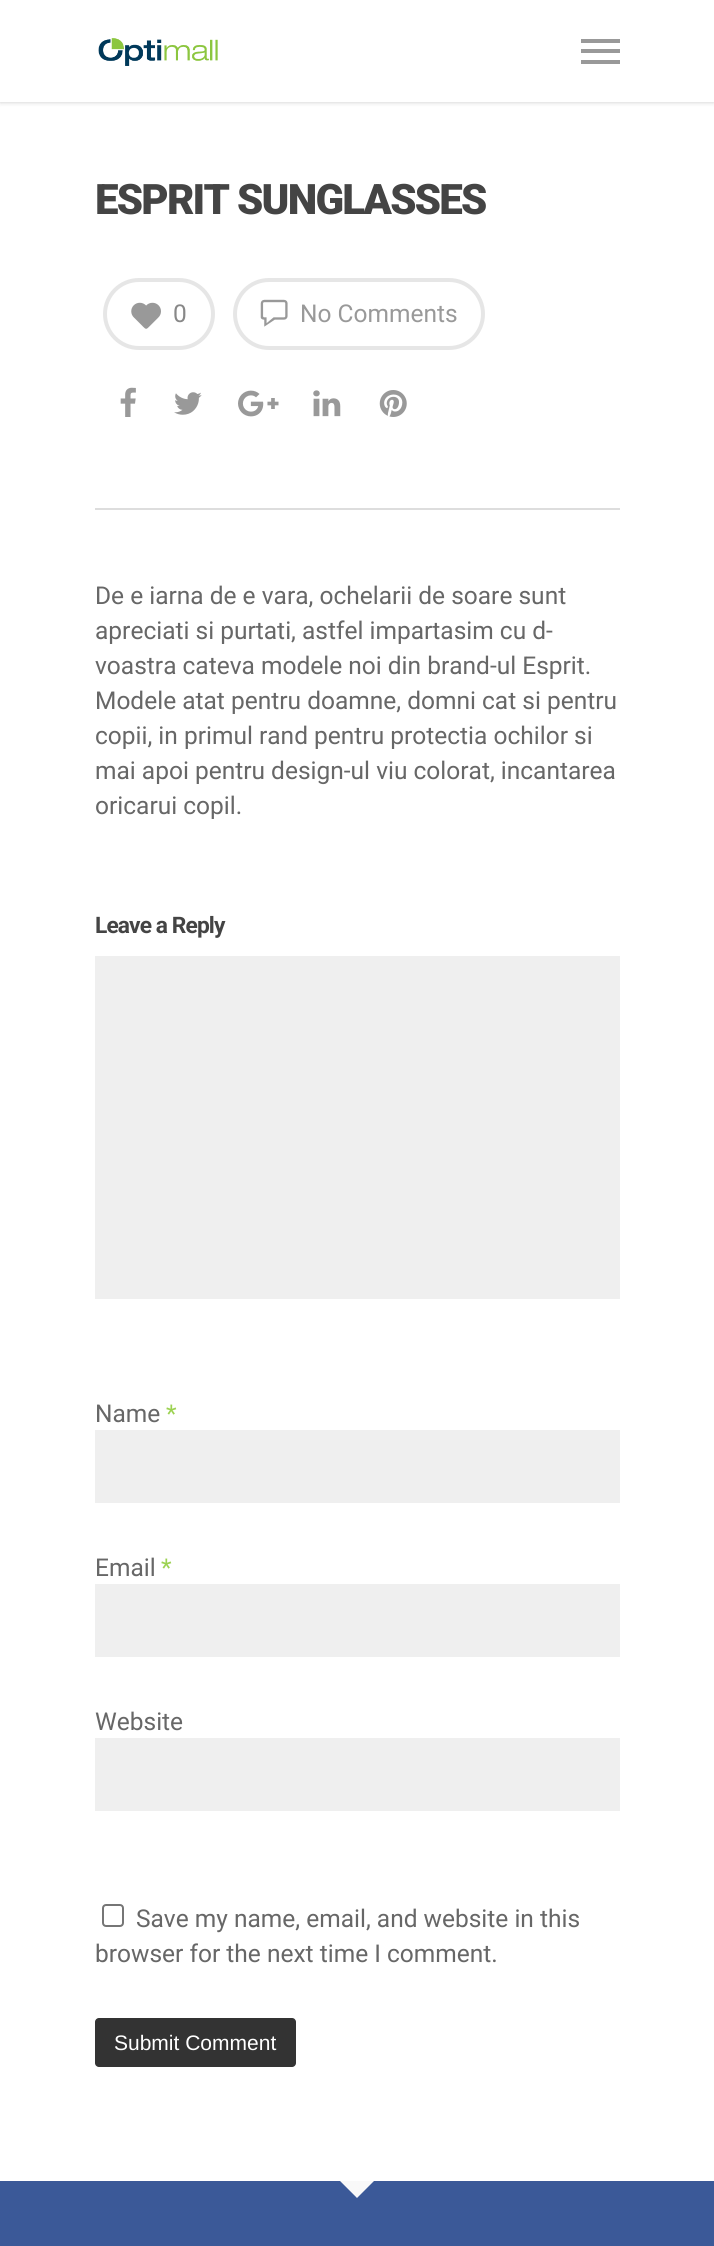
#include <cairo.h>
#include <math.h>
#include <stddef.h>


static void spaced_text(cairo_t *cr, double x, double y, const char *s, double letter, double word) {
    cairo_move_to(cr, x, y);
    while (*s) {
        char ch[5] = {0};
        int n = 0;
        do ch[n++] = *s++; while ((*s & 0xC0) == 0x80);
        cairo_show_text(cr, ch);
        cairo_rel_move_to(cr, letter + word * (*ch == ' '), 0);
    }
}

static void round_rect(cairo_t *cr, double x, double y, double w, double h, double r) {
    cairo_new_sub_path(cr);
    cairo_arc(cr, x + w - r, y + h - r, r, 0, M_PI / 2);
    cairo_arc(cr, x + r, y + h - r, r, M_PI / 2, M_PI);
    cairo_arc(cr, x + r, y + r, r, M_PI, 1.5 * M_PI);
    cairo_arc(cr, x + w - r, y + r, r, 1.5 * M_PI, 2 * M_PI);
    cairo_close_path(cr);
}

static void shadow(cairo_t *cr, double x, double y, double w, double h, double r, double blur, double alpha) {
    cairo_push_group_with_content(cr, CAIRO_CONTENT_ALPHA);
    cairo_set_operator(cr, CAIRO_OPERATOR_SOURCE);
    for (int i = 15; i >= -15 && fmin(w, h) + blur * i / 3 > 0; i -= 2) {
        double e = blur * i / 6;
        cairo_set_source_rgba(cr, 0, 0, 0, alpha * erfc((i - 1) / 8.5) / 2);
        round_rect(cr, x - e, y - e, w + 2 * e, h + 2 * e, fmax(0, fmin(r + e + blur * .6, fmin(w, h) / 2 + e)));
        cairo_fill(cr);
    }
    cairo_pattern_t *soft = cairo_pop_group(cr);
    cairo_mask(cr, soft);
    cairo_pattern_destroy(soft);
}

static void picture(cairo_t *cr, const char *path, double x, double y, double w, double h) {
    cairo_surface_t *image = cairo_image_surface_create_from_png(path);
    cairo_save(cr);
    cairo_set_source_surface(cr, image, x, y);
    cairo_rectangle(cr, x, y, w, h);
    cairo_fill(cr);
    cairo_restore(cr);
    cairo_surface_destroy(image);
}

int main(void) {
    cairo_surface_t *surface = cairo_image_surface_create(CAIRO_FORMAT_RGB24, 714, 2246);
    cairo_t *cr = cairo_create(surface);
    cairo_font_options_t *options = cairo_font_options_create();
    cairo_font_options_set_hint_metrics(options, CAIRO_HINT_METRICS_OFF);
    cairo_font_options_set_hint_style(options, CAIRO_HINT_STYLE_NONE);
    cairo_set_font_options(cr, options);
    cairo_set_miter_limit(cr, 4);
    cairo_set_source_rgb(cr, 0.231, 0.349, 0.596);
    cairo_paint(cr);
    cairo_set_source_rgb(cr, 0.973, 0.973, 0.973);
    cairo_new_path(cr);
    cairo_move_to(cr, 339.5, 2180.5);
    cairo_line_to(cr, 374.5, 2180.5);
    cairo_line_to(cr, 357, 2198);
    cairo_close_path(cr);
    cairo_fill(cr);
    cairo_set_source_rgb(cr, 1, 1, 1);
    cairo_rectangle(cr, 0, 102, 714, 2079);
    cairo_fill(cr);
    cairo_set_source_rgb(cr, 0, 0, 0);
    shadow(cr, 0, 0, 714, 102, 0, 2.5, 0.22);
    cairo_set_source_rgb(cr, 1, 1, 1);
    cairo_rectangle(cr, 0, 0, 714, 102);
    cairo_fill(cr);
    picture(cr, "img1.png", 98, 38, 120, 28);
    cairo_set_source_rgb(cr, 0.6, 0.6, 0.6);
    cairo_rectangle(cr, 581, 39, 39, 4);
    cairo_fill(cr);
    cairo_rectangle(cr, 581, 60, 39, 4);
    cairo_fill(cr);
    cairo_rectangle(cr, 581, 49, 39, 4);
    cairo_fill(cr);
    cairo_set_source_rgb(cr, 0.867, 0.867, 0.867);
    cairo_rectangle(cr, 95, 508, 525, 2);
    cairo_fill(cr);
    cairo_select_font_face(cr, "Roboto Black", CAIRO_FONT_SLANT_NORMAL, CAIRO_FONT_WEIGHT_NORMAL);
    cairo_set_font_size(cr, 42);
    cairo_set_source_rgb(cr, 0.267, 0.267, 0.267);
    spaced_text(cr, 95, 214, "ESPRIT SUNGLASSES", -1.75, 0);
    round_rect(cr, 105, 280, 108, 68, 34);
    cairo_set_source_rgb(cr, 0.902, 0.902, 0.902);
    cairo_set_line_width(cr, 4);
    cairo_stroke(cr);
    picture(cr, "img2.png", 131, 302, 30, 27);
    cairo_select_font_face(cr, "Roboto", CAIRO_FONT_SLANT_NORMAL, CAIRO_FONT_WEIGHT_NORMAL);
    cairo_set_font_size(cr, 24.5);
    cairo_set_source_rgb(cr, 0.533, 0.533, 0.533);
    cairo_move_to(cr, 173, 322);
    cairo_show_text(cr, "0");
    round_rect(cr, 235, 280, 248, 68, 34);
    cairo_set_source_rgb(cr, 0.902, 0.902, 0.902);
    cairo_stroke(cr);
    picture(cr, "img3.png", 260, 299, 28, 28);
    cairo_set_source_rgb(cr, 0.6, 0.6, 0.6);
    cairo_move_to(cr, 300, 322);
    cairo_show_text(cr, "No Comments");
    picture(cr, "img4.png", 120, 387, 16, 30);
    picture(cr, "img5.png", 174, 392, 28, 23);
    picture(cr, "img6.png", 238, 390, 41, 27);
    picture(cr, "img7.png", 313, 390, 28, 27);
    picture(cr, "img8.png", 379, 390, 28, 27);
    cairo_set_source_rgb(cr, 0.404, 0.404, 0.404);
    cairo_move_to(cr, 95, 604);
    cairo_show_text(cr, "De e iarna de e vara, ochelarii de soare sunt");
    cairo_move_to(cr, 95, 639);
    cairo_show_text(cr, "apreciati si purtati, astfel impartasim cu d-");
    cairo_move_to(cr, 95, 674);
    cairo_show_text(cr, "voastra cateva modele noi din brand-ul Esprit.");
    cairo_move_to(cr, 95, 709);
    cairo_show_text(cr, "Modele atat pentru doamne, domni cat si pentru");
    cairo_move_to(cr, 95, 744);
    cairo_show_text(cr, "copii, in primul rand pentru protectia ochilor si");
    cairo_move_to(cr, 95, 779);
    cairo_show_text(cr, "mai apoi pentru design-ul viu colorat, incantarea");
    cairo_move_to(cr, 95, 814);
    cairo_show_text(cr, "oricarui copil.");
    cairo_select_font_face(cr, "Roboto", CAIRO_FONT_SLANT_NORMAL, CAIRO_FONT_WEIGHT_BOLD);
    cairo_set_font_size(cr, 22.75);
    cairo_set_source_rgb(cr, 0.267, 0.267, 0.267);
    spaced_text(cr, 95, 933, "Leave a Reply", -0.9, 0);
    cairo_set_source_rgb(cr, 0.937, 0.937, 0.937);
    cairo_rectangle(cr, 95, 956, 525, 343);
    cairo_fill(cr);
    cairo_select_font_face(cr, "Roboto", CAIRO_FONT_SLANT_NORMAL, CAIRO_FONT_WEIGHT_NORMAL);
    cairo_set_font_size(cr, 24.5);
    cairo_set_source_rgb(cr, 0.404, 0.404, 0.404);
    cairo_move_to(cr, 95, 1422);
    cairo_show_text(cr, "Name");
    cairo_set_source_rgb(cr, 0.612, 0.824, 0.322);
    cairo_move_to(cr, 166, 1422);
    cairo_show_text(cr, "*");
    cairo_set_source_rgb(cr, 0.937, 0.937, 0.937);
    cairo_rectangle(cr, 95, 1430, 525, 73);
    cairo_fill(cr);
    cairo_set_source_rgb(cr, 0.404, 0.404, 0.404);
    cairo_move_to(cr, 95, 1576);
    cairo_show_text(cr, "Email");
    cairo_set_source_rgb(cr, 0.612, 0.824, 0.322);
    cairo_move_to(cr, 161, 1576);
    cairo_show_text(cr, "*");
    cairo_set_source_rgb(cr, 0.937, 0.937, 0.937);
    cairo_rectangle(cr, 95, 1584, 525, 73);
    cairo_fill(cr);
    cairo_set_source_rgb(cr, 0.404, 0.404, 0.404);
    cairo_move_to(cr, 95, 1730);
    cairo_show_text(cr, "Website");
    cairo_set_source_rgb(cr, 0.937, 0.937, 0.937);
    cairo_rectangle(cr, 95, 1738, 525, 73);
    cairo_fill(cr);
    round_rect(cr, 103, 1905, 20, 21, 3);
    cairo_set_source_rgb(cr, 0.463, 0.463, 0.463);
    cairo_set_line_width(cr, 2);
    cairo_stroke(cr);
    cairo_set_source_rgb(cr, 0.404, 0.404, 0.404);
    cairo_move_to(cr, 136, 1927);
    cairo_show_text(cr, "Save my name, email, and website in this");
    cairo_move_to(cr, 95, 1962);
    cairo_show_text(cr, "browser for the next time I comment.");
    cairo_set_source_rgb(cr, 0.2, 0.2, 0.2);
    round_rect(cr, 95, 2018, 201, 49, 4);
    cairo_fill(cr);
    cairo_select_font_face(cr, "Liberation Sans", CAIRO_FONT_SLANT_NORMAL, CAIRO_FONT_WEIGHT_NORMAL);
    cairo_set_font_size(cr, 21);
    cairo_set_source_rgb(cr, 1, 1, 1);
    cairo_move_to(cr, 114, 2050);
    cairo_show_text(cr, "Submit Comment");
    cairo_surface_write_to_png(surface, "page.png");
    cairo_font_options_destroy(options);
    cairo_destroy(cr);
    cairo_surface_destroy(surface);
    return 0;
}
